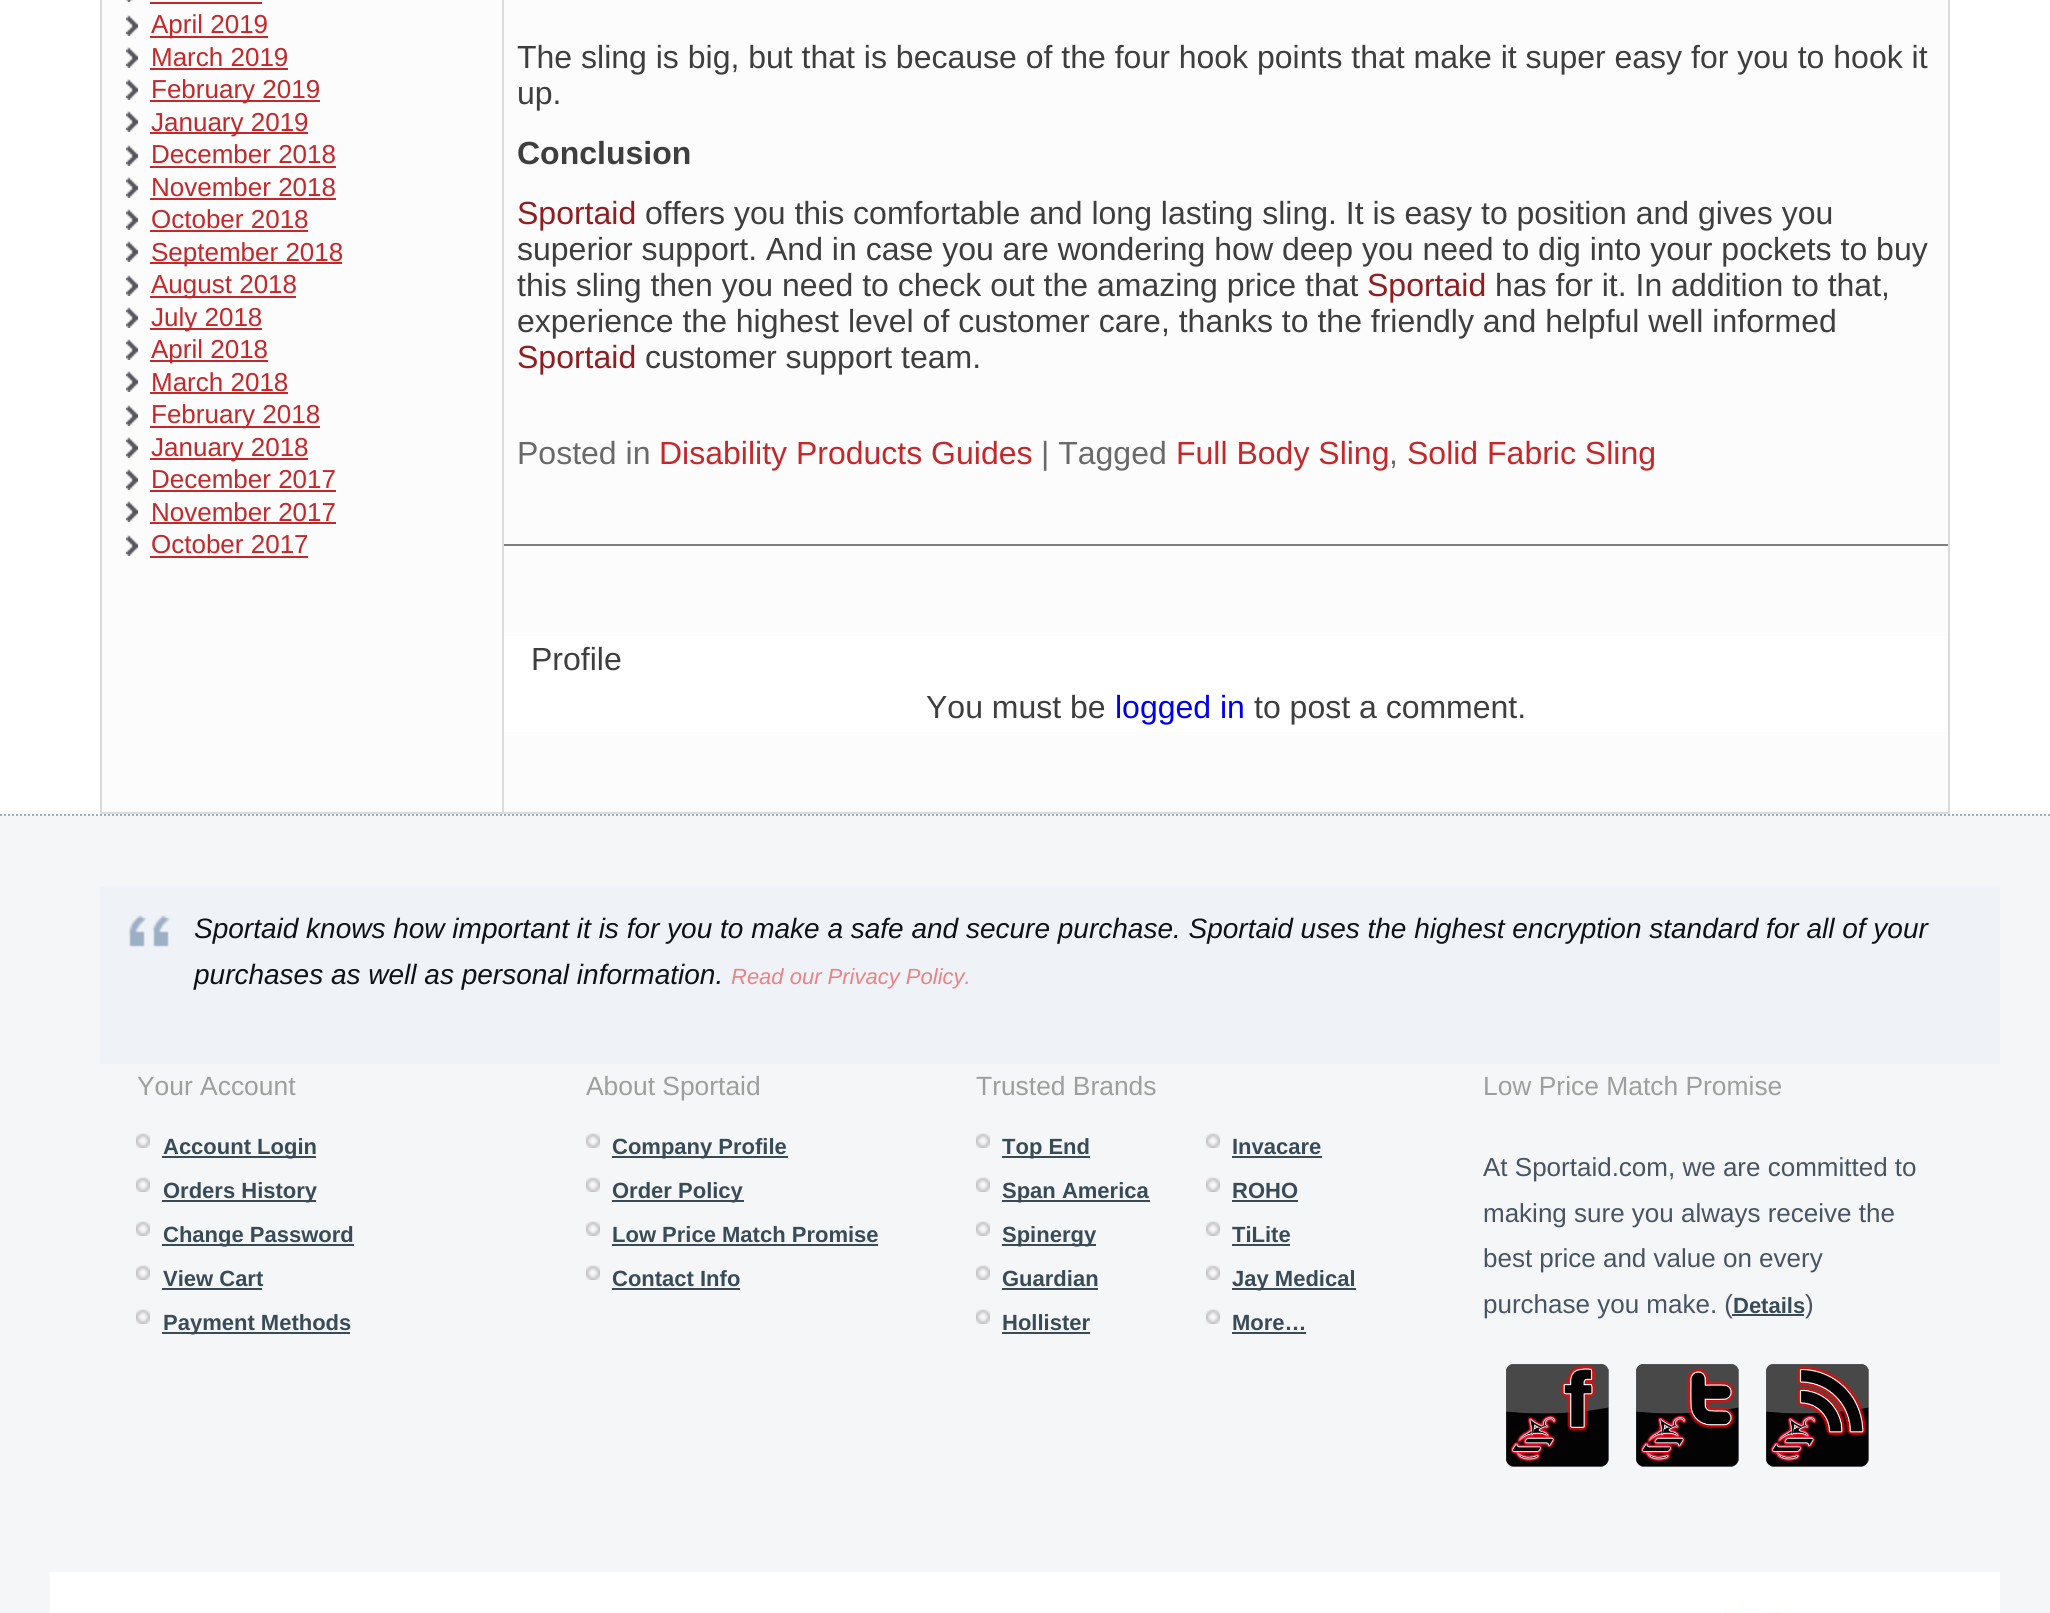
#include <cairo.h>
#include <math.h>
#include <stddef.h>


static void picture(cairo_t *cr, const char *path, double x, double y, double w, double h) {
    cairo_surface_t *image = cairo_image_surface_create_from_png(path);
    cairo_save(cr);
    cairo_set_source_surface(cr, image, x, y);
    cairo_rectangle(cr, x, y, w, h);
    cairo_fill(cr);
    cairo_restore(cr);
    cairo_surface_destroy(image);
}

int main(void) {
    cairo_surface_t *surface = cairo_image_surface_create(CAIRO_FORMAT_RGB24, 2050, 1613);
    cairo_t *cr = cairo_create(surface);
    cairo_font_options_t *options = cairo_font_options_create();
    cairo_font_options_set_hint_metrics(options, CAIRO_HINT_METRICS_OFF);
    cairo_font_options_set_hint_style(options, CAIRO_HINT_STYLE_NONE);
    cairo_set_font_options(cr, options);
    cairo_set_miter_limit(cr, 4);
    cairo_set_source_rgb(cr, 1, 1, 1);
    cairo_paint(cr);
    cairo_set_source_rgb(cr, 0.988, 0.988, 0.988);
    cairo_rectangle(cr, 101, -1, 1848, 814);
    cairo_fill_preserve(cr);
    cairo_set_source_rgb(cr, 0.859, 0.859, 0.859);
    cairo_stroke(cr);
    cairo_rectangle(cr, 502, 0, 2, 814);
    cairo_fill(cr);
    picture(cr, "img1.png", 126, 0, 7, 2);
    cairo_set_source_rgb(cr, 0.765, 0.157, 0.165);
    cairo_rectangle(cr, 150, 2, 112, 2);
    cairo_fill(cr);
    picture(cr, "img2.png", 126, 15, 12, 21);
    cairo_rectangle(cr, 150, 36, 118, 2);
    cairo_fill(cr);
    cairo_select_font_face(cr, "Liberation Sans", CAIRO_FONT_SLANT_NORMAL, CAIRO_FONT_WEIGHT_NORMAL);
    cairo_set_font_size(cr, 26);
    cairo_move_to(cr, 151, 33);
    cairo_show_text(cr, "April 2019");
    picture(cr, "img2.png", 126, 47, 12, 21);
    cairo_move_to(cr, 151, 66);
    cairo_show_text(cr, "March 2019");
    cairo_rectangle(cr, 150, 68, 138, 2);
    cairo_fill(cr);
    picture(cr, "img2.png", 126, 79, 12, 21);
    cairo_rectangle(cr, 150, 100, 170, 2);
    cairo_fill(cr);
    cairo_move_to(cr, 151, 98);
    cairo_show_text(cr, "February 2019");
    picture(cr, "img2.png", 126, 111, 12, 21);
    cairo_rectangle(cr, 150, 132, 158, 2);
    cairo_fill(cr);
    cairo_move_to(cr, 151, 131);
    cairo_show_text(cr, "January 2019");
    picture(cr, "img2.png", 126, 145, 12, 21);
    cairo_move_to(cr, 151, 163);
    cairo_show_text(cr, "December 2018");
    cairo_rectangle(cr, 150, 166, 186, 2);
    cairo_fill(cr);
    picture(cr, "img2.png", 126, 177, 12, 21);
    cairo_move_to(cr, 151, 196);
    cairo_show_text(cr, "November 2018");
    cairo_rectangle(cr, 150, 198, 186, 2);
    cairo_fill(cr);
    picture(cr, "img2.png", 126, 209, 12, 21);
    cairo_move_to(cr, 151, 228);
    cairo_show_text(cr, "October 2018");
    cairo_rectangle(cr, 150, 230, 158, 2);
    cairo_fill(cr);
    picture(cr, "img2.png", 126, 241, 12, 21);
    cairo_rectangle(cr, 150, 262, 192, 2);
    cairo_fill(cr);
    cairo_move_to(cr, 151, 261);
    cairo_show_text(cr, "September 2018");
    picture(cr, "img2.png", 126, 275, 12, 21);
    cairo_rectangle(cr, 150, 296, 146, 2);
    cairo_fill(cr);
    cairo_move_to(cr, 151, 293);
    cairo_show_text(cr, "August 2018");
    picture(cr, "img2.png", 126, 307, 12, 21);
    cairo_rectangle(cr, 150, 328, 112, 2);
    cairo_fill(cr);
    cairo_move_to(cr, 151, 326);
    cairo_show_text(cr, "July 2018");
    picture(cr, "img2.png", 126, 339, 12, 21);
    cairo_rectangle(cr, 150, 360, 118, 2);
    cairo_fill(cr);
    cairo_move_to(cr, 151, 358);
    cairo_show_text(cr, "April 2018");
    picture(cr, "img2.png", 126, 371, 12, 21);
    cairo_move_to(cr, 151, 391);
    cairo_show_text(cr, "March 2018");
    cairo_rectangle(cr, 150, 392, 138, 2);
    cairo_fill(cr);
    picture(cr, "img2.png", 126, 405, 12, 21);
    cairo_rectangle(cr, 150, 426, 170, 2);
    cairo_fill(cr);
    cairo_move_to(cr, 151, 423);
    cairo_show_text(cr, "February 2018");
    picture(cr, "img2.png", 126, 437, 12, 21);
    cairo_rectangle(cr, 150, 458, 158, 2);
    cairo_fill(cr);
    cairo_move_to(cr, 151, 456);
    cairo_show_text(cr, "January 2018");
    picture(cr, "img2.png", 126, 469, 12, 21);
    cairo_move_to(cr, 151, 488);
    cairo_show_text(cr, "December 2017");
    cairo_rectangle(cr, 150, 490, 186, 2);
    cairo_fill(cr);
    picture(cr, "img2.png", 126, 501, 12, 21);
    cairo_move_to(cr, 151, 521);
    cairo_show_text(cr, "November 2017");
    cairo_rectangle(cr, 150, 522, 186, 2);
    cairo_fill(cr);
    picture(cr, "img2.png", 126, 535, 12, 21);
    cairo_move_to(cr, 151, 553);
    cairo_show_text(cr, "October 2017");
    cairo_rectangle(cr, 150, 556, 158, 2);
    cairo_fill(cr);
    cairo_set_source_rgb(cr, 0.49, 0.49, 0.49);
    cairo_rectangle(cr, 504, 544, 1444, 2);
    cairo_fill(cr);
    cairo_set_font_size(cr, 32);
    cairo_set_source_rgb(cr, 0.239, 0.243, 0.239);
    cairo_move_to(cr, 517, 68);
    cairo_show_text(cr, "The sling is big, but that is because of the four hook points that make it super easy for you to hook it");
    cairo_move_to(cr, 517, 104);
    cairo_show_text(cr, "up.");
    cairo_select_font_face(cr, "Liberation Sans", CAIRO_FONT_SLANT_NORMAL, CAIRO_FONT_WEIGHT_BOLD);
    cairo_move_to(cr, 517, 164);
    cairo_show_text(cr, "Conclusion");
    cairo_select_font_face(cr, "Liberation Sans", CAIRO_FONT_SLANT_NORMAL, CAIRO_FONT_WEIGHT_NORMAL);
    cairo_set_source_rgb(cr, 0.565, 0.114, 0.122);
    cairo_move_to(cr, 517, 224);
    cairo_show_text(cr, "Sportaid");
    cairo_set_source_rgb(cr, 0.239, 0.243, 0.239);
    cairo_move_to(cr, 645, 224);
    cairo_show_text(cr, "offers you this comfortable and long lasting sling. It is easy to position and gives you");
    cairo_move_to(cr, 517, 260);
    cairo_show_text(cr, "superior support. And in case you are wondering how deep you need to dig into your pockets to buy");
    cairo_move_to(cr, 517, 296);
    cairo_show_text(cr, "this sling then you need to check out the amazing price that");
    cairo_set_source_rgb(cr, 0.565, 0.114, 0.122);
    cairo_move_to(cr, 1367, 296);
    cairo_show_text(cr, "Sportaid");
    cairo_set_source_rgb(cr, 0.239, 0.243, 0.239);
    cairo_move_to(cr, 1495, 296);
    cairo_show_text(cr, "has for it. In addition to that,");
    cairo_move_to(cr, 517, 332);
    cairo_show_text(cr, "experience the highest level of customer care, thanks to the friendly and helpful well informed");
    cairo_set_source_rgb(cr, 0.565, 0.114, 0.122);
    cairo_move_to(cr, 517, 368);
    cairo_show_text(cr, "Sportaid");
    cairo_set_source_rgb(cr, 0.239, 0.243, 0.239);
    cairo_move_to(cr, 645, 368);
    cairo_show_text(cr, "customer support team.");
    cairo_set_source_rgb(cr, 0.408, 0.412, 0.408);
    cairo_move_to(cr, 517, 464);
    cairo_show_text(cr, "Posted in");
    cairo_set_source_rgb(cr, 0.765, 0.157, 0.165);
    cairo_move_to(cr, 659, 464);
    cairo_show_text(cr, "Disability Products Guides");
    cairo_set_source_rgb(cr, 0.408, 0.412, 0.408);
    cairo_move_to(cr, 1041, 464);
    cairo_show_text(cr, "| Tagged");
    cairo_set_source_rgb(cr, 0.765, 0.157, 0.165);
    cairo_move_to(cr, 1176, 464);
    cairo_show_text(cr, "Full Body Sling");
    cairo_set_source_rgb(cr, 0.408, 0.412, 0.408);
    cairo_move_to(cr, 1389, 464);
    cairo_show_text(cr, ",");
    cairo_set_source_rgb(cr, 0.765, 0.157, 0.165);
    cairo_move_to(cr, 1407, 464);
    cairo_show_text(cr, "Solid Fabric Sling");
    cairo_set_source_rgb(cr, 1, 1, 1);
    cairo_rectangle(cr, 504, 636, 1444, 96);
    cairo_fill(cr);
    cairo_set_source_rgb(cr, 0.239, 0.243, 0.239);
    cairo_move_to(cr, 531, 670);
    cairo_show_text(cr, "Profile");
    cairo_move_to(cr, 926, 718);
    cairo_show_text(cr, "You must be");
    cairo_set_source_rgb(cr, 0, 0, 0.933);
    cairo_move_to(cr, 1115, 718);
    cairo_show_text(cr, "logged in");
    cairo_set_source_rgb(cr, 0.239, 0.243, 0.239);
    cairo_move_to(cr, 1254, 718);
    cairo_show_text(cr, "to post a comment.");
    cairo_set_source_rgb(cr, 0.957, 0.961, 0.969);
    cairo_rectangle(cr, 0, 814, 2050, 799);
    cairo_fill(cr);
    cairo_new_path(cr);
    cairo_move_to(cr, 0, 815);
    cairo_line_to(cr, 2050, 815);
    cairo_set_source_rgb(cr, 0.612, 0.686, 0.769);
    cairo_set_dash(cr, (double[]){2, 2}, 2, 0);
    cairo_stroke(cr);
    cairo_set_source_rgb(cr, 0.937, 0.949, 0.961);
    cairo_rectangle(cr, 100, 886, 1900, 178);
    cairo_fill(cr);
    picture(cr, "img3.png", 128, 915, 43, 32);
    cairo_select_font_face(cr, "Liberation Sans", CAIRO_FONT_SLANT_ITALIC, CAIRO_FONT_WEIGHT_NORMAL);
    cairo_set_font_size(cr, 28);
    cairo_set_source_rgb(cr, 0.051, 0.071, 0.086);
    cairo_move_to(cr, 194, 938);
    cairo_show_text(cr, "Sportaid knows how important it is for you to make a safe and secure purchase. Sportaid uses the highest encryption standard for all of your");
    cairo_move_to(cr, 194, 984);
    cairo_show_text(cr, "purchases as well as personal information.");
    cairo_set_font_size(cr, 22);
    cairo_set_source_rgb(cr, 0.902, 0.518, 0.525);
    cairo_move_to(cr, 731, 984);
    cairo_show_text(cr, "Read our Privacy Policy.");
    cairo_select_font_face(cr, "Liberation Sans", CAIRO_FONT_SLANT_NORMAL, CAIRO_FONT_WEIGHT_NORMAL);
    cairo_set_font_size(cr, 26.4);
    cairo_set_source_rgb(cr, 0.616, 0.624, 0.616);
    cairo_move_to(cr, 137, 1095);
    cairo_show_text(cr, "Your Account");
    picture(cr, "img4.png", 136, 1133, 14, 15);
    cairo_set_source_rgb(cr, 0.224, 0.294, 0.341);
    cairo_rectangle(cr, 162, 1156, 154, 2);
    cairo_fill(cr);
    cairo_select_font_face(cr, "Liberation Sans", CAIRO_FONT_SLANT_NORMAL, CAIRO_FONT_WEIGHT_BOLD);
    cairo_set_font_size(cr, 22);
    cairo_move_to(cr, 163, 1154);
    cairo_show_text(cr, "Account Login");
    picture(cr, "img4.png", 136, 1177, 14, 15);
    cairo_rectangle(cr, 162, 1200, 154, 2);
    cairo_fill(cr);
    cairo_move_to(cr, 163, 1198);
    cairo_show_text(cr, "Orders History");
    picture(cr, "img4.png", 136, 1221, 14, 15);
    cairo_rectangle(cr, 162, 1244, 192, 2);
    cairo_fill(cr);
    cairo_move_to(cr, 163, 1242);
    cairo_show_text(cr, "Change Password");
    picture(cr, "img4.png", 136, 1265, 14, 15);
    cairo_move_to(cr, 163, 1286);
    cairo_show_text(cr, "View Cart");
    cairo_rectangle(cr, 162, 1288, 100, 2);
    cairo_fill(cr);
    picture(cr, "img4.png", 136, 1309, 14, 15);
    cairo_rectangle(cr, 162, 1332, 188, 2);
    cairo_fill(cr);
    cairo_move_to(cr, 163, 1330);
    cairo_show_text(cr, "Payment Methods");
    cairo_select_font_face(cr, "Liberation Sans", CAIRO_FONT_SLANT_NORMAL, CAIRO_FONT_WEIGHT_NORMAL);
    cairo_set_font_size(cr, 26.4);
    cairo_set_source_rgb(cr, 0.616, 0.624, 0.616);
    cairo_move_to(cr, 586, 1095);
    cairo_show_text(cr, "About Sportaid");
    picture(cr, "img4.png", 586, 1133, 14, 15);
    cairo_set_source_rgb(cr, 0.224, 0.294, 0.341);
    cairo_rectangle(cr, 612, 1156, 176, 2);
    cairo_fill(cr);
    cairo_select_font_face(cr, "Liberation Sans", CAIRO_FONT_SLANT_NORMAL, CAIRO_FONT_WEIGHT_BOLD);
    cairo_set_font_size(cr, 22);
    cairo_move_to(cr, 612, 1154);
    cairo_show_text(cr, "Company Profile");
    picture(cr, "img4.png", 586, 1177, 14, 15);
    cairo_rectangle(cr, 612, 1200, 132, 2);
    cairo_fill(cr);
    cairo_move_to(cr, 612, 1198);
    cairo_show_text(cr, "Order Policy");
    picture(cr, "img4.png", 586, 1221, 14, 15);
    cairo_move_to(cr, 612, 1242);
    cairo_show_text(cr, "Low Price Match Promise");
    cairo_rectangle(cr, 612, 1244, 266, 2);
    cairo_fill(cr);
    picture(cr, "img4.png", 586, 1265, 14, 15);
    cairo_move_to(cr, 612, 1286);
    cairo_show_text(cr, "Contact Info");
    cairo_rectangle(cr, 612, 1288, 128, 2);
    cairo_fill(cr);
    cairo_select_font_face(cr, "Liberation Sans", CAIRO_FONT_SLANT_NORMAL, CAIRO_FONT_WEIGHT_NORMAL);
    cairo_set_font_size(cr, 26.4);
    cairo_set_source_rgb(cr, 0.616, 0.624, 0.616);
    cairo_move_to(cr, 976, 1095);
    cairo_show_text(cr, "Trusted Brands");
    picture(cr, "img4.png", 976, 1133, 14, 15);
    cairo_set_source_rgb(cr, 0.224, 0.294, 0.341);
    cairo_rectangle(cr, 1002, 1156, 88, 2);
    cairo_fill(cr);
    cairo_select_font_face(cr, "Liberation Sans", CAIRO_FONT_SLANT_NORMAL, CAIRO_FONT_WEIGHT_BOLD);
    cairo_set_font_size(cr, 22);
    cairo_move_to(cr, 1002, 1154);
    cairo_show_text(cr, "Top End");
    picture(cr, "img4.png", 1206, 1133, 14, 15);
    cairo_move_to(cr, 1232, 1154);
    cairo_show_text(cr, "Invacare");
    cairo_rectangle(cr, 1232, 1156, 90, 2);
    cairo_fill(cr);
    picture(cr, "img4.png", 976, 1177, 14, 15);
    cairo_rectangle(cr, 1002, 1200, 148, 2);
    cairo_fill(cr);
    cairo_move_to(cr, 1002, 1198);
    cairo_show_text(cr, "Span America");
    picture(cr, "img4.png", 1206, 1177, 14, 15);
    cairo_move_to(cr, 1232, 1198);
    cairo_show_text(cr, "ROHO");
    cairo_rectangle(cr, 1232, 1200, 66, 2);
    cairo_fill(cr);
    picture(cr, "img4.png", 976, 1221, 14, 15);
    cairo_rectangle(cr, 1002, 1244, 94, 2);
    cairo_fill(cr);
    cairo_move_to(cr, 1002, 1242);
    cairo_show_text(cr, "Spinergy");
    picture(cr, "img4.png", 1206, 1221, 14, 15);
    cairo_move_to(cr, 1232, 1242);
    cairo_show_text(cr, "TiLite");
    cairo_rectangle(cr, 1232, 1244, 58, 2);
    cairo_fill(cr);
    picture(cr, "img4.png", 976, 1265, 14, 15);
    cairo_move_to(cr, 1002, 1286);
    cairo_show_text(cr, "Guardian");
    cairo_rectangle(cr, 1002, 1288, 96, 2);
    cairo_fill(cr);
    picture(cr, "img4.png", 1206, 1265, 14, 15);
    cairo_rectangle(cr, 1232, 1288, 124, 2);
    cairo_fill(cr);
    cairo_move_to(cr, 1232, 1286);
    cairo_show_text(cr, "Jay Medical");
    picture(cr, "img4.png", 976, 1309, 14, 15);
    cairo_move_to(cr, 1002, 1330);
    cairo_show_text(cr, "Hollister");
    cairo_rectangle(cr, 1002, 1332, 88, 2);
    cairo_fill(cr);
    picture(cr, "img4.png", 1206, 1309, 14, 15);
    cairo_move_to(cr, 1232, 1330);
    cairo_show_text(cr, "More…");
    cairo_rectangle(cr, 1232, 1332, 74, 2);
    cairo_fill(cr);
    cairo_select_font_face(cr, "Liberation Sans", CAIRO_FONT_SLANT_NORMAL, CAIRO_FONT_WEIGHT_NORMAL);
    cairo_set_font_size(cr, 26.4);
    cairo_set_source_rgb(cr, 0.616, 0.624, 0.616);
    cairo_move_to(cr, 1483, 1095);
    cairo_show_text(cr, "Low Price Match Promise");
    cairo_set_font_size(cr, 26);
    cairo_set_source_rgb(cr, 0.282, 0.329, 0.38);
    cairo_move_to(cr, 1483, 1176);
    cairo_show_text(cr, "At Sportaid.com, we are committed to");
    cairo_move_to(cr, 1483, 1222);
    cairo_show_text(cr, "making sure you always receive the");
    cairo_move_to(cr, 1483, 1267);
    cairo_show_text(cr, "best price and value on every");
    cairo_move_to(cr, 1483, 1313);
    cairo_show_text(cr, "purchase you make. (");
    cairo_select_font_face(cr, "Liberation Sans", CAIRO_FONT_SLANT_NORMAL, CAIRO_FONT_WEIGHT_BOLD);
    cairo_set_font_size(cr, 22);
    cairo_set_source_rgb(cr, 0.224, 0.294, 0.341);
    cairo_move_to(cr, 1733, 1313);
    cairo_show_text(cr, "Details");
    cairo_select_font_face(cr, "Liberation Sans", CAIRO_FONT_SLANT_NORMAL, CAIRO_FONT_WEIGHT_NORMAL);
    cairo_set_font_size(cr, 26);
    cairo_set_source_rgb(cr, 0.282, 0.329, 0.38);
    cairo_move_to(cr, 1805, 1313);
    cairo_show_text(cr, ")");
    cairo_set_source_rgb(cr, 0.224, 0.294, 0.341);
    cairo_rectangle(cr, 1732, 1314, 72, 2);
    cairo_fill(cr);
    picture(cr, "img5.png", 1506, 1364, 103, 103);
    picture(cr, "img6.png", 1636, 1364, 103, 103);
    picture(cr, "img7.png", 1766, 1364, 103, 103);
    cairo_set_source_rgb(cr, 1, 1, 1);
    cairo_rectangle(cr, 50, 1572, 1950, 41);
    cairo_fill(cr);
    picture(cr, "img8.png", 1723, 1612, 73, 1);
    cairo_surface_write_to_png(surface, "page.png");
    cairo_font_options_destroy(options);
    cairo_destroy(cr);
    cairo_surface_destroy(surface);
    return 0;
}
